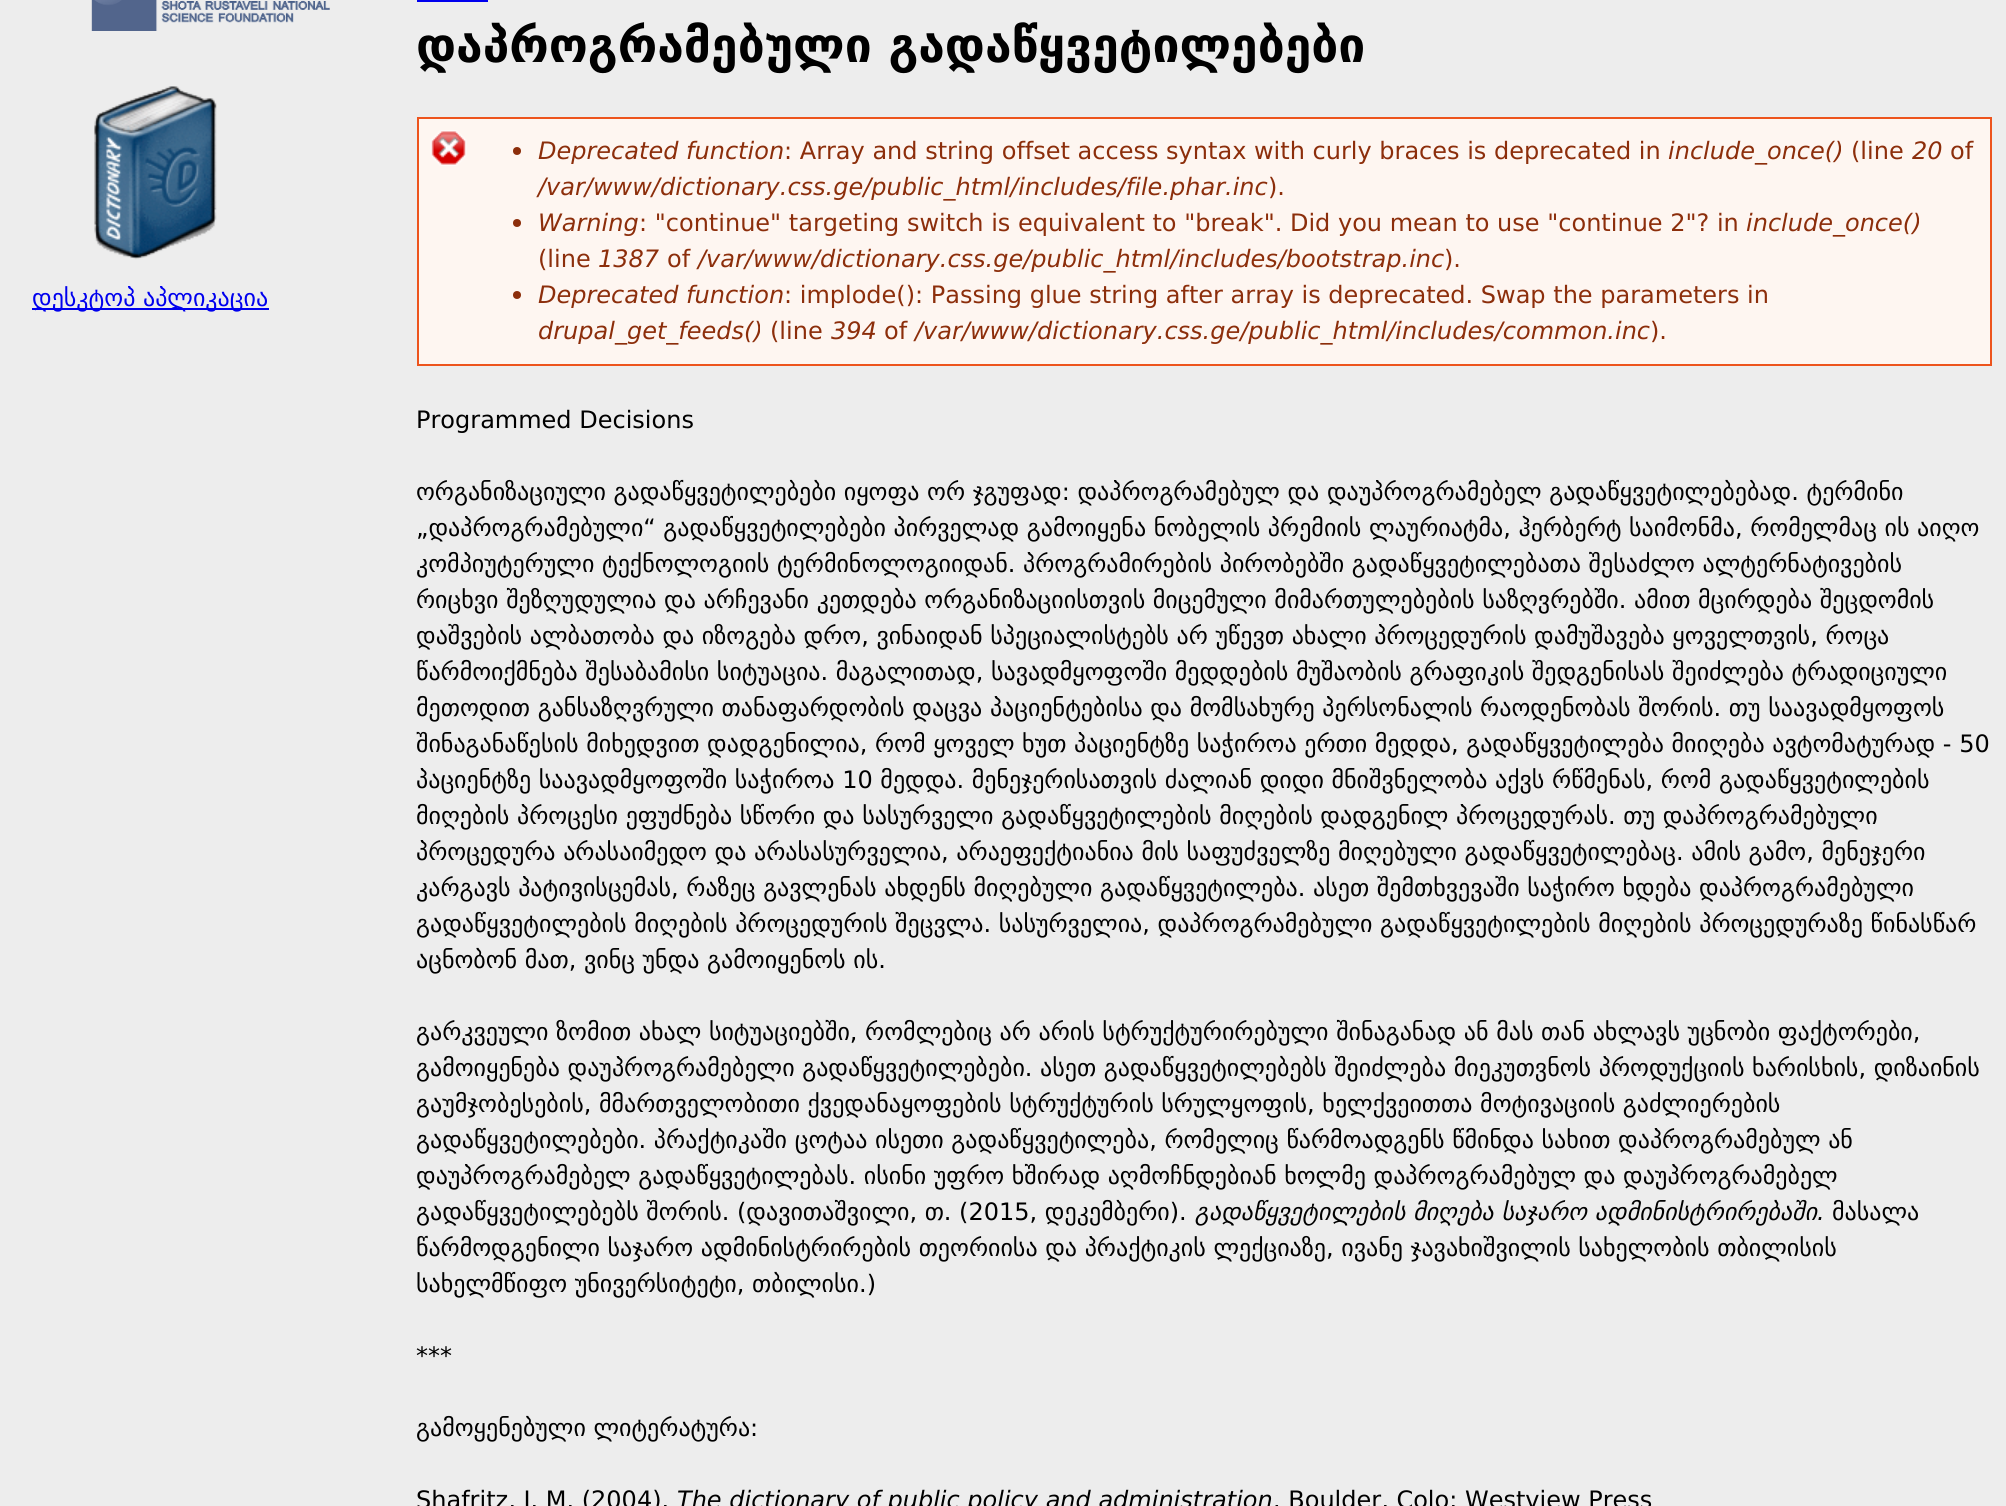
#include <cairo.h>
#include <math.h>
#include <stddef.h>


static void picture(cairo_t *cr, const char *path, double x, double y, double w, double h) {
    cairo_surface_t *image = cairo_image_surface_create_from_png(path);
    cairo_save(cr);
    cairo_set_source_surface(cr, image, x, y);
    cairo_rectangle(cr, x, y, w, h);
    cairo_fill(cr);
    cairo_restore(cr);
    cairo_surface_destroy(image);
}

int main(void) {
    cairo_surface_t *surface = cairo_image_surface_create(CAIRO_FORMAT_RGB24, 2006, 1506);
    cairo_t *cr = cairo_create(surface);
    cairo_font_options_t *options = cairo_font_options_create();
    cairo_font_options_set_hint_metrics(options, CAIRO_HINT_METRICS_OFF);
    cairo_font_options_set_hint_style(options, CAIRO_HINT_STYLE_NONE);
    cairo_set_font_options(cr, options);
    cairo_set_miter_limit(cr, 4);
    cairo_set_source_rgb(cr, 0.929, 0.929, 0.929);
    cairo_paint(cr);
    picture(cr, "img1.png", 91, 0, 239, 31);
    picture(cr, "img2.png", 94, 86, 123, 174);
    cairo_set_source_rgb(cr, 0, 0, 0.933);
    cairo_rectangle(cr, 32, 308, 237, 2);
    cairo_fill(cr);
    cairo_select_font_face(cr, "DejaVu Sans", CAIRO_FONT_SLANT_NORMAL, CAIRO_FONT_WEIGHT_NORMAL);
    cairo_set_font_size(cr, 24);
    cairo_move_to(cr, 32, 306);
    cairo_show_text(cr, "დესკტოპ აპლიკაცია");
    cairo_rectangle(cr, 417, 0, 71, 2);
    cairo_fill(cr);
    cairo_select_font_face(cr, "DejaVu Sans", CAIRO_FONT_SLANT_NORMAL, CAIRO_FONT_WEIGHT_BOLD);
    cairo_set_font_size(cr, 48);
    cairo_set_source_rgb(cr, 0, 0, 0);
    cairo_move_to(cr, 416, 62);
    cairo_show_text(cr, "დაპროგრამებული გადაწყვეტილებები");
    cairo_set_source_rgb(cr, 0.996, 0.961, 0.945);
    cairo_rectangle(cr, 419, 119, 1571, 245);
    cairo_fill(cr);
    picture(cr, "img3.png", 430, 130, 37, 36);
    cairo_rectangle(cr, 418, 118, 1573, 247);
    cairo_set_source_rgb(cr, 0.929, 0.329, 0.114);
    cairo_stroke(cr);
    cairo_set_source_rgb(cr, 0.549, 0.18, 0.043);
    cairo_arc(cr, 517, 151, 4, 0, 2 * M_PI);
    cairo_fill(cr);
    cairo_select_font_face(cr, "DejaVu Sans", CAIRO_FONT_SLANT_ITALIC, CAIRO_FONT_WEIGHT_NORMAL);
    cairo_set_font_size(cr, 24);
    cairo_move_to(cr, 538, 159);
    cairo_show_text(cr, "Deprecated function");
    cairo_select_font_face(cr, "DejaVu Sans", CAIRO_FONT_SLANT_NORMAL, CAIRO_FONT_WEIGHT_NORMAL);
    cairo_move_to(cr, 784, 159);
    cairo_show_text(cr, ": Array and string offset access syntax with curly braces is deprecated in");
    cairo_select_font_face(cr, "DejaVu Sans", CAIRO_FONT_SLANT_ITALIC, CAIRO_FONT_WEIGHT_NORMAL);
    cairo_move_to(cr, 1668, 159);
    cairo_show_text(cr, "include_once()");
    cairo_select_font_face(cr, "DejaVu Sans", CAIRO_FONT_SLANT_NORMAL, CAIRO_FONT_WEIGHT_NORMAL);
    cairo_move_to(cr, 1851, 159);
    cairo_show_text(cr, "(line");
    cairo_select_font_face(cr, "DejaVu Sans", CAIRO_FONT_SLANT_ITALIC, CAIRO_FONT_WEIGHT_NORMAL);
    cairo_move_to(cr, 1912, 159);
    cairo_show_text(cr, "20");
    cairo_select_font_face(cr, "DejaVu Sans", CAIRO_FONT_SLANT_NORMAL, CAIRO_FONT_WEIGHT_NORMAL);
    cairo_move_to(cr, 1950, 159);
    cairo_show_text(cr, "of");
    cairo_select_font_face(cr, "DejaVu Sans", CAIRO_FONT_SLANT_ITALIC, CAIRO_FONT_WEIGHT_NORMAL);
    cairo_move_to(cr, 538, 195);
    cairo_show_text(cr, "/var/www/dictionary.css.ge/public_html/includes/file.phar.inc");
    cairo_select_font_face(cr, "DejaVu Sans", CAIRO_FONT_SLANT_NORMAL, CAIRO_FONT_WEIGHT_NORMAL);
    cairo_move_to(cr, 1268, 195);
    cairo_show_text(cr, ").");
    cairo_new_path(cr);
    cairo_arc(cr, 517, 223, 4, 0, 2 * M_PI);
    cairo_fill(cr);
    cairo_select_font_face(cr, "DejaVu Sans", CAIRO_FONT_SLANT_ITALIC, CAIRO_FONT_WEIGHT_NORMAL);
    cairo_move_to(cr, 538, 231);
    cairo_show_text(cr, "Warning");
    cairo_select_font_face(cr, "DejaVu Sans", CAIRO_FONT_SLANT_NORMAL, CAIRO_FONT_WEIGHT_NORMAL);
    cairo_move_to(cr, 639, 231);
    cairo_show_text(cr, ": \"continue\" targeting switch is equivalent to \"break\". Did you mean to use \"continue 2\"? in");
    cairo_select_font_face(cr, "DejaVu Sans", CAIRO_FONT_SLANT_ITALIC, CAIRO_FONT_WEIGHT_NORMAL);
    cairo_move_to(cr, 1746, 231);
    cairo_show_text(cr, "include_once()");
    cairo_select_font_face(cr, "DejaVu Sans", CAIRO_FONT_SLANT_NORMAL, CAIRO_FONT_WEIGHT_NORMAL);
    cairo_move_to(cr, 538, 267);
    cairo_show_text(cr, "(line");
    cairo_select_font_face(cr, "DejaVu Sans", CAIRO_FONT_SLANT_ITALIC, CAIRO_FONT_WEIGHT_NORMAL);
    cairo_move_to(cr, 598, 267);
    cairo_show_text(cr, "1387");
    cairo_select_font_face(cr, "DejaVu Sans", CAIRO_FONT_SLANT_NORMAL, CAIRO_FONT_WEIGHT_NORMAL);
    cairo_move_to(cr, 667, 267);
    cairo_show_text(cr, "of");
    cairo_select_font_face(cr, "DejaVu Sans", CAIRO_FONT_SLANT_ITALIC, CAIRO_FONT_WEIGHT_NORMAL);
    cairo_move_to(cr, 698, 267);
    cairo_show_text(cr, "/var/www/dictionary.css.ge/public_html/includes/bootstrap.inc");
    cairo_select_font_face(cr, "DejaVu Sans", CAIRO_FONT_SLANT_NORMAL, CAIRO_FONT_WEIGHT_NORMAL);
    cairo_move_to(cr, 1444, 267);
    cairo_show_text(cr, ").");
    cairo_new_path(cr);
    cairo_arc(cr, 517, 295, 4, 0, 2 * M_PI);
    cairo_fill(cr);
    cairo_select_font_face(cr, "DejaVu Sans", CAIRO_FONT_SLANT_ITALIC, CAIRO_FONT_WEIGHT_NORMAL);
    cairo_move_to(cr, 538, 303);
    cairo_show_text(cr, "Deprecated function");
    cairo_select_font_face(cr, "DejaVu Sans", CAIRO_FONT_SLANT_NORMAL, CAIRO_FONT_WEIGHT_NORMAL);
    cairo_move_to(cr, 784, 303);
    cairo_show_text(cr, ": implode(): Passing glue string after array is deprecated. Swap the parameters in");
    cairo_select_font_face(cr, "DejaVu Sans", CAIRO_FONT_SLANT_ITALIC, CAIRO_FONT_WEIGHT_NORMAL);
    cairo_move_to(cr, 538, 339);
    cairo_show_text(cr, "drupal_get_feeds()");
    cairo_select_font_face(cr, "DejaVu Sans", CAIRO_FONT_SLANT_NORMAL, CAIRO_FONT_WEIGHT_NORMAL);
    cairo_move_to(cr, 770, 339);
    cairo_show_text(cr, "(line");
    cairo_select_font_face(cr, "DejaVu Sans", CAIRO_FONT_SLANT_ITALIC, CAIRO_FONT_WEIGHT_NORMAL);
    cairo_move_to(cr, 831, 339);
    cairo_show_text(cr, "394");
    cairo_select_font_face(cr, "DejaVu Sans", CAIRO_FONT_SLANT_NORMAL, CAIRO_FONT_WEIGHT_NORMAL);
    cairo_move_to(cr, 884, 339);
    cairo_show_text(cr, "of");
    cairo_select_font_face(cr, "DejaVu Sans", CAIRO_FONT_SLANT_ITALIC, CAIRO_FONT_WEIGHT_NORMAL);
    cairo_move_to(cr, 915, 339);
    cairo_show_text(cr, "/var/www/dictionary.css.ge/public_html/includes/common.inc");
    cairo_select_font_face(cr, "DejaVu Sans", CAIRO_FONT_SLANT_NORMAL, CAIRO_FONT_WEIGHT_NORMAL);
    cairo_move_to(cr, 1650, 339);
    cairo_show_text(cr, ").");
    cairo_set_source_rgb(cr, 0, 0, 0);
    cairo_move_to(cr, 416, 428);
    cairo_show_text(cr, "Programmed Decisions");
    cairo_move_to(cr, 416, 500);
    cairo_show_text(cr, "ორგანიზაციული გადაწყვეტილებები იყოფა ორ ჯგუფად: დაპროგრამებულ და დაუპროგრამებელ გადაწყვეტილებებად. ტერმინი");
    cairo_move_to(cr, 416, 536);
    cairo_show_text(cr, "„დაპროგრამებული“ გადაწყვეტილებები პირველად გამოიყენა ნობელის პრემიის ლაურიატმა, ჰერბერტ საიმონმა, რომელმაც ის აიღო");
    cairo_move_to(cr, 416, 572);
    cairo_show_text(cr, "კომპიუტერული ტექნოლოგიის ტერმინოლოგიიდან. პროგრამირების პირობებში გადაწყვეტილებათა შესაძლო ალტერნატივების");
    cairo_move_to(cr, 416, 608);
    cairo_show_text(cr, "რიცხვი შეზღუდულია და არჩევანი კეთდება ორგანიზაციისთვის მიცემული მიმართულებების საზღვრებში. ამით მცირდება შეცდომის");
    cairo_move_to(cr, 416, 644);
    cairo_show_text(cr, "დაშვების ალბათობა და იზოგება დრო, ვინაიდან სპეციალისტებს არ უწევთ ახალი პროცედურის დამუშავება ყოველთვის, როცა");
    cairo_move_to(cr, 416, 680);
    cairo_show_text(cr, "წარმოიქმნება შესაბამისი სიტუაცია. მაგალითად, სავადმყოფოში მედდების მუშაობის გრაფიკის შედგენისას შეიძლება ტრადიციული");
    cairo_move_to(cr, 416, 716);
    cairo_show_text(cr, "მეთოდით განსაზღვრული თანაფარდობის დაცვა პაციენტებისა და მომსახურე პერსონალის რაოდენობას შორის. თუ საავადმყოფოს");
    cairo_move_to(cr, 416, 752);
    cairo_show_text(cr, "შინაგანაწესის მიხედვით დადგენილია, რომ ყოველ ხუთ პაციენტზე საჭიროა ერთი მედდა, გადაწყვეტილება მიიღება ავტომატურად - 50");
    cairo_move_to(cr, 416, 788);
    cairo_show_text(cr, "პაციენტზე საავადმყოფოში საჭიროა 10 მედდა. მენეჯერისათვის ძალიან დიდი მნიშვნელობა აქვს რწმენას, რომ გადაწყვეტილების");
    cairo_move_to(cr, 416, 824);
    cairo_show_text(cr, "მიღების პროცესი ეფუძნება სწორი და სასურველი გადაწყვეტილების მიღების დადგენილ პროცედურას. თუ დაპროგრამებული");
    cairo_move_to(cr, 416, 860);
    cairo_show_text(cr, "პროცედურა არასაიმედო და არასასურველია, არაეფექტიანია მის საფუძველზე მიღებული გადაწყვეტილებაც. ამის გამო, მენეჯერი");
    cairo_move_to(cr, 416, 896);
    cairo_show_text(cr, "კარგავს პატივისცემას, რაზეც გავლენას ახდენს მიღებული გადაწყვეტილება. ასეთ შემთხვევაში საჭირო ხდება დაპროგრამებული");
    cairo_move_to(cr, 416, 932);
    cairo_show_text(cr, "გადაწყვეტილების მიღების პროცედურის შეცვლა. სასურველია, დაპროგრამებული გადაწყვეტილების მიღების პროცედურაზე წინასწარ");
    cairo_move_to(cr, 416, 968);
    cairo_show_text(cr, "აცნობონ მათ, ვინც უნდა გამოიყენოს ის.");
    cairo_move_to(cr, 416, 1040);
    cairo_show_text(cr, "გარკვეული ზომით ახალ სიტუაციებში, რომლებიც არ არის სტრუქტურირებული შინაგანად ან მას თან ახლავს უცნობი ფაქტორები,");
    cairo_move_to(cr, 416, 1076);
    cairo_show_text(cr, "გამოიყენება დაუპროგრამებელი გადაწყვეტილებები. ასეთ გადაწყვეტილებებს შეიძლება მიეკუთვნოს პროდუქციის ხარისხის, დიზაინის");
    cairo_move_to(cr, 416, 1112);
    cairo_show_text(cr, "გაუმჯობესების, მმართველობითი ქვედანაყოფების სტრუქტურის სრულყოფის, ხელქვეითთა მოტივაციის გაძლიერების");
    cairo_move_to(cr, 416, 1148);
    cairo_show_text(cr, "გადაწყვეტილებები. პრაქტიკაში ცოტაა ისეთი გადაწყვეტილება, რომელიც წარმოადგენს წმინდა სახით დაპროგრამებულ ან");
    cairo_move_to(cr, 416, 1184);
    cairo_show_text(cr, "დაუპროგრამებელ გადაწყვეტილებას. ისინი უფრო ხშირად აღმოჩნდებიან ხოლმე დაპროგრამებულ და დაუპროგრამებელ");
    cairo_move_to(cr, 416, 1220);
    cairo_show_text(cr, "გადაწყვეტილებებს შორის. (დავითაშვილი, თ. (2015, დეკემბერი).");
    cairo_select_font_face(cr, "DejaVu Sans", CAIRO_FONT_SLANT_ITALIC, CAIRO_FONT_WEIGHT_NORMAL);
    cairo_move_to(cr, 1195, 1220);
    cairo_show_text(cr, "გადაწყვეტილების მიღება საჯარო ადმინისტრირებაში.");
    cairo_select_font_face(cr, "DejaVu Sans", CAIRO_FONT_SLANT_NORMAL, CAIRO_FONT_WEIGHT_NORMAL);
    cairo_move_to(cr, 1832, 1220);
    cairo_show_text(cr, "მასალა");
    cairo_move_to(cr, 416, 1256);
    cairo_show_text(cr, "წარმოდგენილი საჯარო ადმინისტრირების თეორიისა და პრაქტიკის ლექციაზე, ივანე ჯავახიშვილის სახელობის თბილისის");
    cairo_move_to(cr, 416, 1292);
    cairo_show_text(cr, "სახელმწიფო უნივერსიტეტი, თბილისი.)");
    cairo_move_to(cr, 416, 1364);
    cairo_show_text(cr, "***");
    cairo_move_to(cr, 416, 1436);
    cairo_show_text(cr, "გამოყენებული ლიტერატურა:");
    cairo_move_to(cr, 416, 1508);
    cairo_show_text(cr, "Shafritz, J. M. (2004).");
    cairo_select_font_face(cr, "DejaVu Sans", CAIRO_FONT_SLANT_ITALIC, CAIRO_FONT_WEIGHT_NORMAL);
    cairo_move_to(cr, 677, 1508);
    cairo_show_text(cr, "The dictionary of public policy and administration");
    cairo_select_font_face(cr, "DejaVu Sans", CAIRO_FONT_SLANT_NORMAL, CAIRO_FONT_WEIGHT_NORMAL);
    cairo_move_to(cr, 1273, 1508);
    cairo_show_text(cr, ". Boulder, Colo: Westview Press");
    cairo_surface_write_to_png(surface, "page.png");
    cairo_font_options_destroy(options);
    cairo_destroy(cr);
    cairo_surface_destroy(surface);
    return 0;
}
